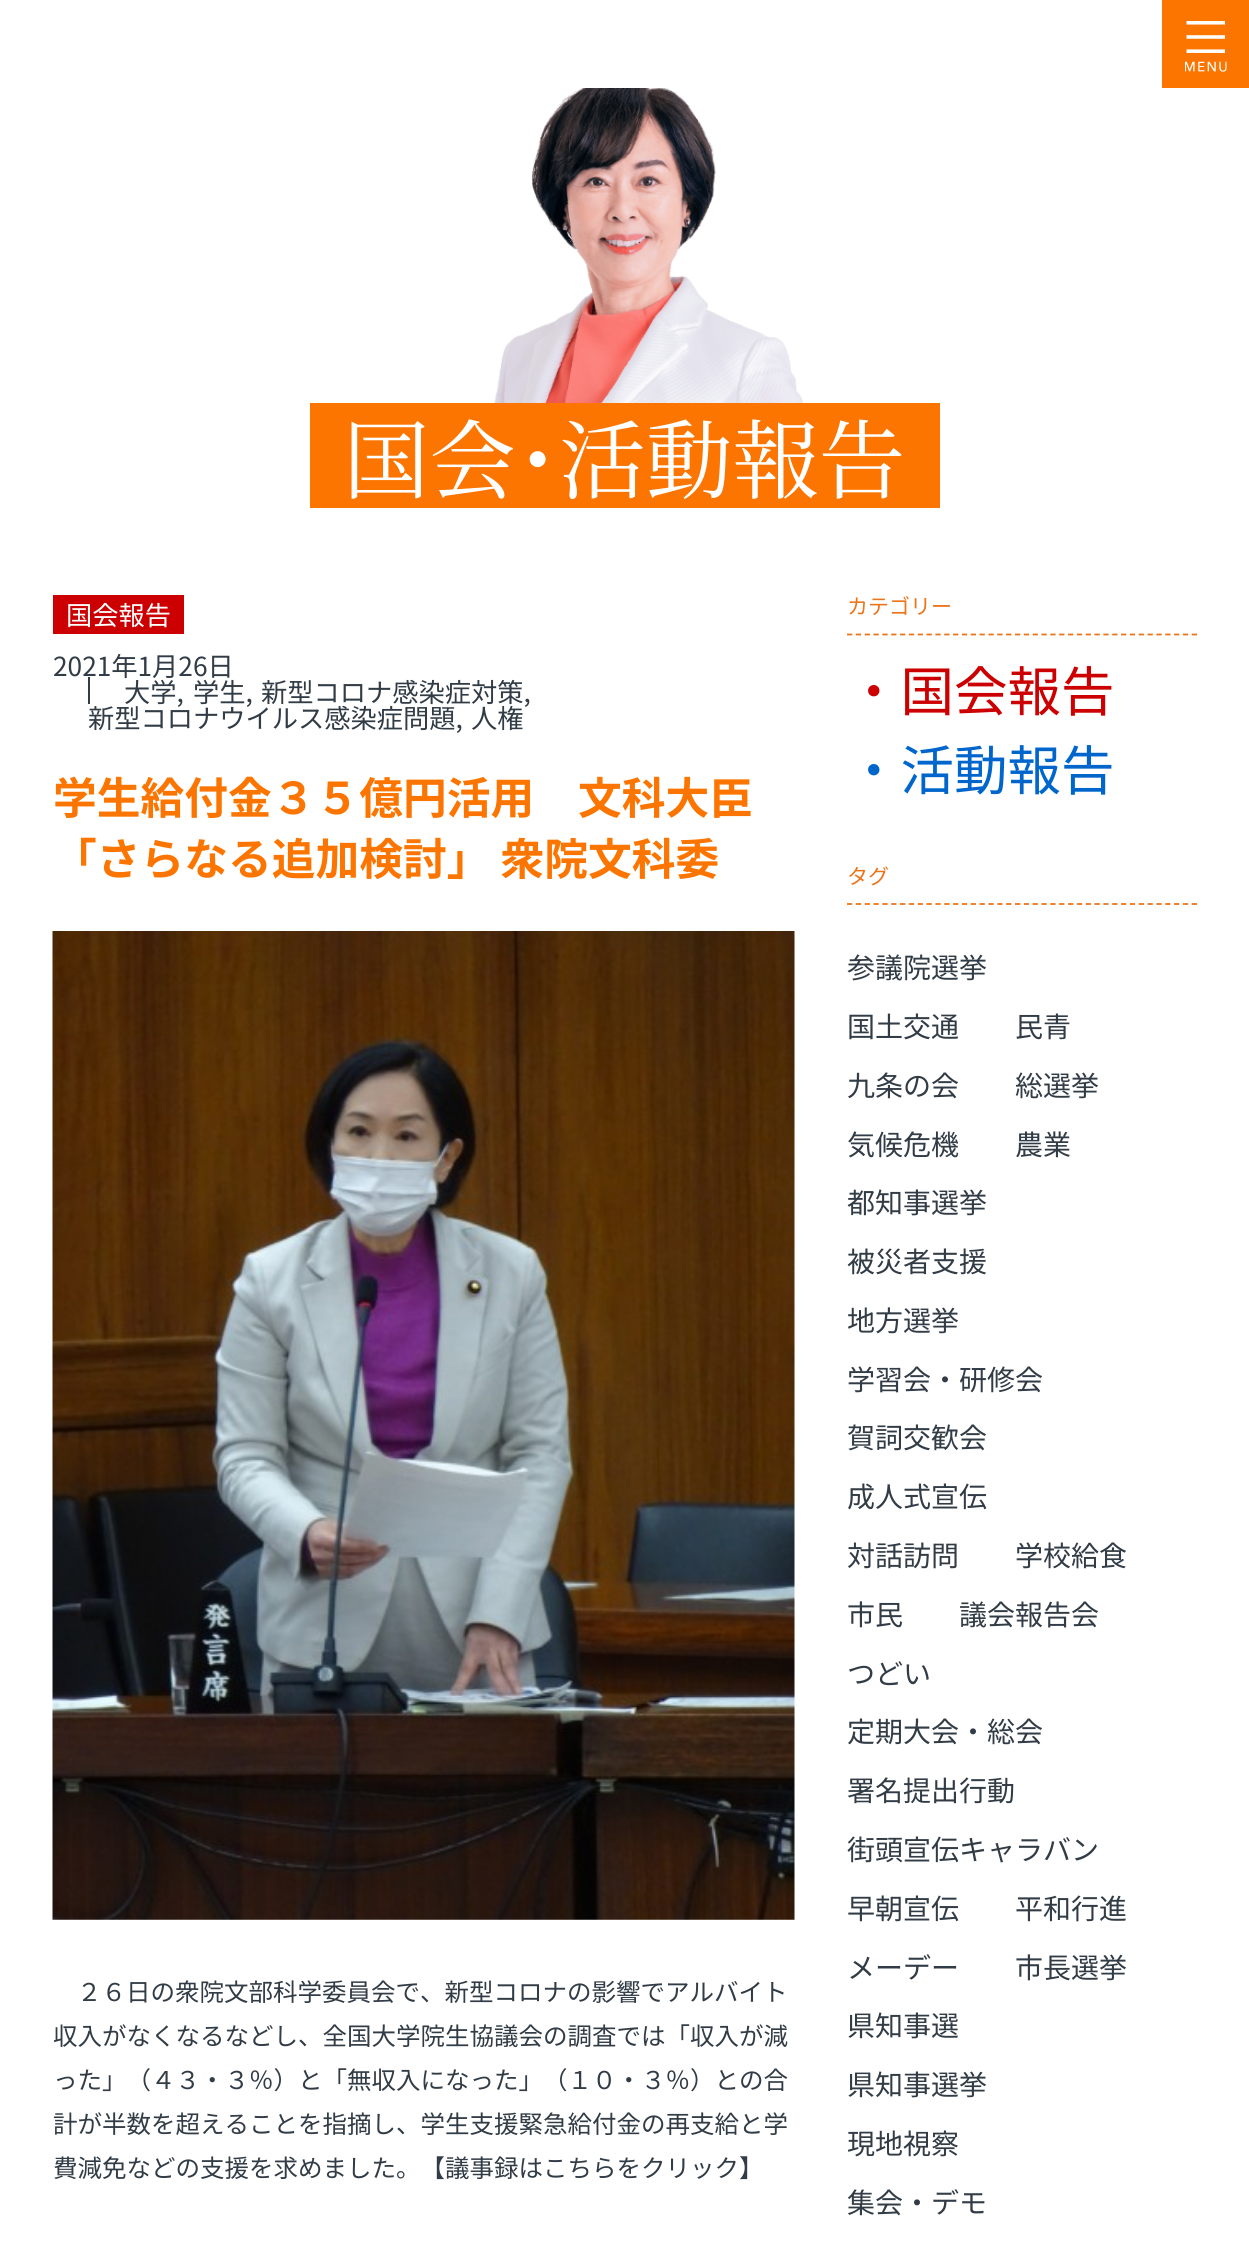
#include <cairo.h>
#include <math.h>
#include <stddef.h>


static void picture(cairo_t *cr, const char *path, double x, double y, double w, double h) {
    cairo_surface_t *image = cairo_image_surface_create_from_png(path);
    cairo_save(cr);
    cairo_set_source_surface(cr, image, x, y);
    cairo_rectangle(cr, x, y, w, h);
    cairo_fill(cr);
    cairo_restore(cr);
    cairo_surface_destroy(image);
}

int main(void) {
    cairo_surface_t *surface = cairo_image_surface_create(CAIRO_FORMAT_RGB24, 1249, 2244);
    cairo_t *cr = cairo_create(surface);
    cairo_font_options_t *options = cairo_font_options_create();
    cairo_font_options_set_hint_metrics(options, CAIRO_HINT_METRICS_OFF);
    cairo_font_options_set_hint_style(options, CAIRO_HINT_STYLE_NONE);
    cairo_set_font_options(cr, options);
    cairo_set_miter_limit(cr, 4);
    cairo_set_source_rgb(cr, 1, 1, 1);
    cairo_paint(cr);
    cairo_set_source_rgb(cr, 0.988, 0.459, 0);
    cairo_rectangle(cr, 1162, 0, 87, 88);
    cairo_fill(cr);
    picture(cr, "img1.png", 1185, 21, 42, 51);
    picture(cr, "img2.png", 494, 88, 310, 315);
    cairo_rectangle(cr, 310, 403, 630, 105);
    cairo_fill(cr);
    cairo_select_font_face(cr, "Noto Serif JP", CAIRO_FONT_SLANT_NORMAL, CAIRO_FONT_WEIGHT_NORMAL);
    cairo_set_font_size(cr, 86.5);
    cairo_set_source_rgb(cr, 1, 1, 1);
    cairo_move_to(cr, 343, 492);
    cairo_show_text(cr, "国会･活動報告");
    cairo_set_source_rgb(cr, 0.8, 0, 0);
    cairo_rectangle(cr, 53, 595, 131, 39);
    cairo_fill(cr);
    cairo_select_font_face(cr, "Noto Sans JP", CAIRO_FONT_SLANT_NORMAL, CAIRO_FONT_WEIGHT_NORMAL);
    cairo_set_font_size(cr, 26.25);
    cairo_set_source_rgb(cr, 1, 1, 1);
    cairo_move_to(cr, 66, 625);
    cairo_show_text(cr, "国会報告");
    cairo_set_source_rgb(cr, 0.196, 0.235, 0.275);
    cairo_move_to(cr, 53, 676);
    cairo_show_text(cr, "2021年1月26日");
    cairo_rectangle(cr, 88, 677, 2, 27);
    cairo_fill(cr);
    cairo_move_to(cr, 124, 702);
    cairo_show_text(cr, "大学,");
    cairo_move_to(cr, 193, 702);
    cairo_show_text(cr, "学生,");
    cairo_move_to(cr, 261, 702);
    cairo_show_text(cr, "新型コロナ感染症対策,");
    cairo_move_to(cr, 88, 728);
    cairo_show_text(cr, "新型コロナウイルス感染症問題,");
    cairo_move_to(cr, 471, 728);
    cairo_show_text(cr, "人権");
    cairo_select_font_face(cr, "Noto Sans JP", CAIRO_FONT_SLANT_NORMAL, CAIRO_FONT_WEIGHT_BOLD);
    cairo_set_font_size(cr, 43.75);
    cairo_set_source_rgb(cr, 0.988, 0.459, 0);
    cairo_move_to(cr, 53, 814);
    cairo_show_text(cr, "学生給付金３５億円活用　文科大臣");
    cairo_move_to(cr, 53, 875);
    cairo_show_text(cr, "「さらなる追加検討」 衆院文科委");
    picture(cr, "img3.png", 52, 931, 743, 989);
    cairo_select_font_face(cr, "Noto Sans JP", CAIRO_FONT_SLANT_NORMAL, CAIRO_FONT_WEIGHT_NORMAL);
    cairo_set_font_size(cr, 24.5);
    cairo_set_source_rgb(cr, 0.196, 0.235, 0.275);
    cairo_move_to(cr, 77, 2001);
    cairo_show_text(cr, "２６日の衆院文部科学委員会で、新型コロナの影響でアルバイト");
    cairo_move_to(cr, 53, 2045);
    cairo_show_text(cr, "収入がなくなるなどし、全国大学院生協議会の調査では「収入が減");
    cairo_move_to(cr, 53, 2089);
    cairo_show_text(cr, "った」（４３・３％）と「無収入になった」（１０・３％）との合");
    cairo_move_to(cr, 53, 2133);
    cairo_show_text(cr, "計が半数を超えることを指摘し、学生支援緊急給付金の再支給と学");
    cairo_move_to(cr, 53, 2177);
    cairo_show_text(cr, "費減免などの支援を求めました。【議事録はこちらをクリック】");
    cairo_new_path(cr);
    cairo_move_to(cr, 847, 634.5);
    cairo_line_to(cr, 1197, 634.5);
    cairo_set_source_rgb(cr, 0.922, 0.459, 0.11);
    cairo_set_line_width(cr, 1.8);
    cairo_set_dash(cr, (double[]){5.25, 3.59}, 2, 0);
    cairo_stroke(cr);
    cairo_set_font_size(cr, 21);
    cairo_move_to(cr, 847, 614);
    cairo_show_text(cr, "カテゴリー");
    cairo_set_font_size(cr, 53.5);
    cairo_set_source_rgb(cr, 0.8, 0, 0);
    cairo_move_to(cr, 847, 711);
    cairo_show_text(cr, "・国会報告");
    cairo_set_source_rgb(cr, 0, 0.4, 0.8);
    cairo_move_to(cr, 847, 790);
    cairo_show_text(cr, "・活動報告");
    cairo_new_path(cr);
    cairo_move_to(cr, 847, 904);
    cairo_line_to(cr, 1197, 904);
    cairo_set_source_rgb(cr, 0.922, 0.459, 0.11);
    cairo_stroke(cr);
    cairo_set_font_size(cr, 21);
    cairo_move_to(cr, 847, 884);
    cairo_show_text(cr, "タグ");
    cairo_set_font_size(cr, 28);
    cairo_set_source_rgb(cr, 0.196, 0.235, 0.275);
    cairo_move_to(cr, 847, 978);
    cairo_show_text(cr, "参議院選挙");
    cairo_move_to(cr, 847, 1037);
    cairo_show_text(cr, "国土交通");
    cairo_move_to(cr, 1015, 1037);
    cairo_show_text(cr, "民青");
    cairo_move_to(cr, 847, 1096);
    cairo_show_text(cr, "九条の会");
    cairo_move_to(cr, 1015, 1096);
    cairo_show_text(cr, "総選挙");
    cairo_move_to(cr, 847, 1155);
    cairo_show_text(cr, "気候危機");
    cairo_move_to(cr, 1015, 1155);
    cairo_show_text(cr, "農業");
    cairo_move_to(cr, 847, 1213);
    cairo_show_text(cr, "都知事選挙");
    cairo_move_to(cr, 847, 1272);
    cairo_show_text(cr, "被災者支援");
    cairo_move_to(cr, 847, 1331);
    cairo_show_text(cr, "地方選挙");
    cairo_move_to(cr, 847, 1390);
    cairo_show_text(cr, "学習会・研修会");
    cairo_move_to(cr, 847, 1448);
    cairo_show_text(cr, "賀詞交歓会");
    cairo_move_to(cr, 847, 1507);
    cairo_show_text(cr, "成人式宣伝");
    cairo_move_to(cr, 847, 1566);
    cairo_show_text(cr, "対話訪問");
    cairo_move_to(cr, 1015, 1566);
    cairo_show_text(cr, "学校給食");
    cairo_move_to(cr, 847, 1625);
    cairo_show_text(cr, "市民");
    cairo_move_to(cr, 959, 1625);
    cairo_show_text(cr, "議会報告会");
    cairo_move_to(cr, 847, 1684);
    cairo_show_text(cr, "つどい");
    cairo_move_to(cr, 847, 1742);
    cairo_show_text(cr, "定期大会・総会");
    cairo_move_to(cr, 847, 1801);
    cairo_show_text(cr, "署名提出行動");
    cairo_move_to(cr, 847, 1860);
    cairo_show_text(cr, "街頭宣伝キャラバン");
    cairo_move_to(cr, 847, 1919);
    cairo_show_text(cr, "早朝宣伝");
    cairo_move_to(cr, 1015, 1919);
    cairo_show_text(cr, "平和行進");
    cairo_move_to(cr, 847, 1978);
    cairo_show_text(cr, "メーデー");
    cairo_move_to(cr, 1015, 1978);
    cairo_show_text(cr, "市長選挙");
    cairo_move_to(cr, 847, 2036);
    cairo_show_text(cr, "県知事選");
    cairo_move_to(cr, 847, 2095);
    cairo_show_text(cr, "県知事選挙");
    cairo_move_to(cr, 847, 2154);
    cairo_show_text(cr, "現地視察");
    cairo_move_to(cr, 847, 2213);
    cairo_show_text(cr, "集会・デモ");
    cairo_surface_write_to_png(surface, "page.png");
    cairo_font_options_destroy(options);
    cairo_destroy(cr);
    cairo_surface_destroy(surface);
    return 0;
}
